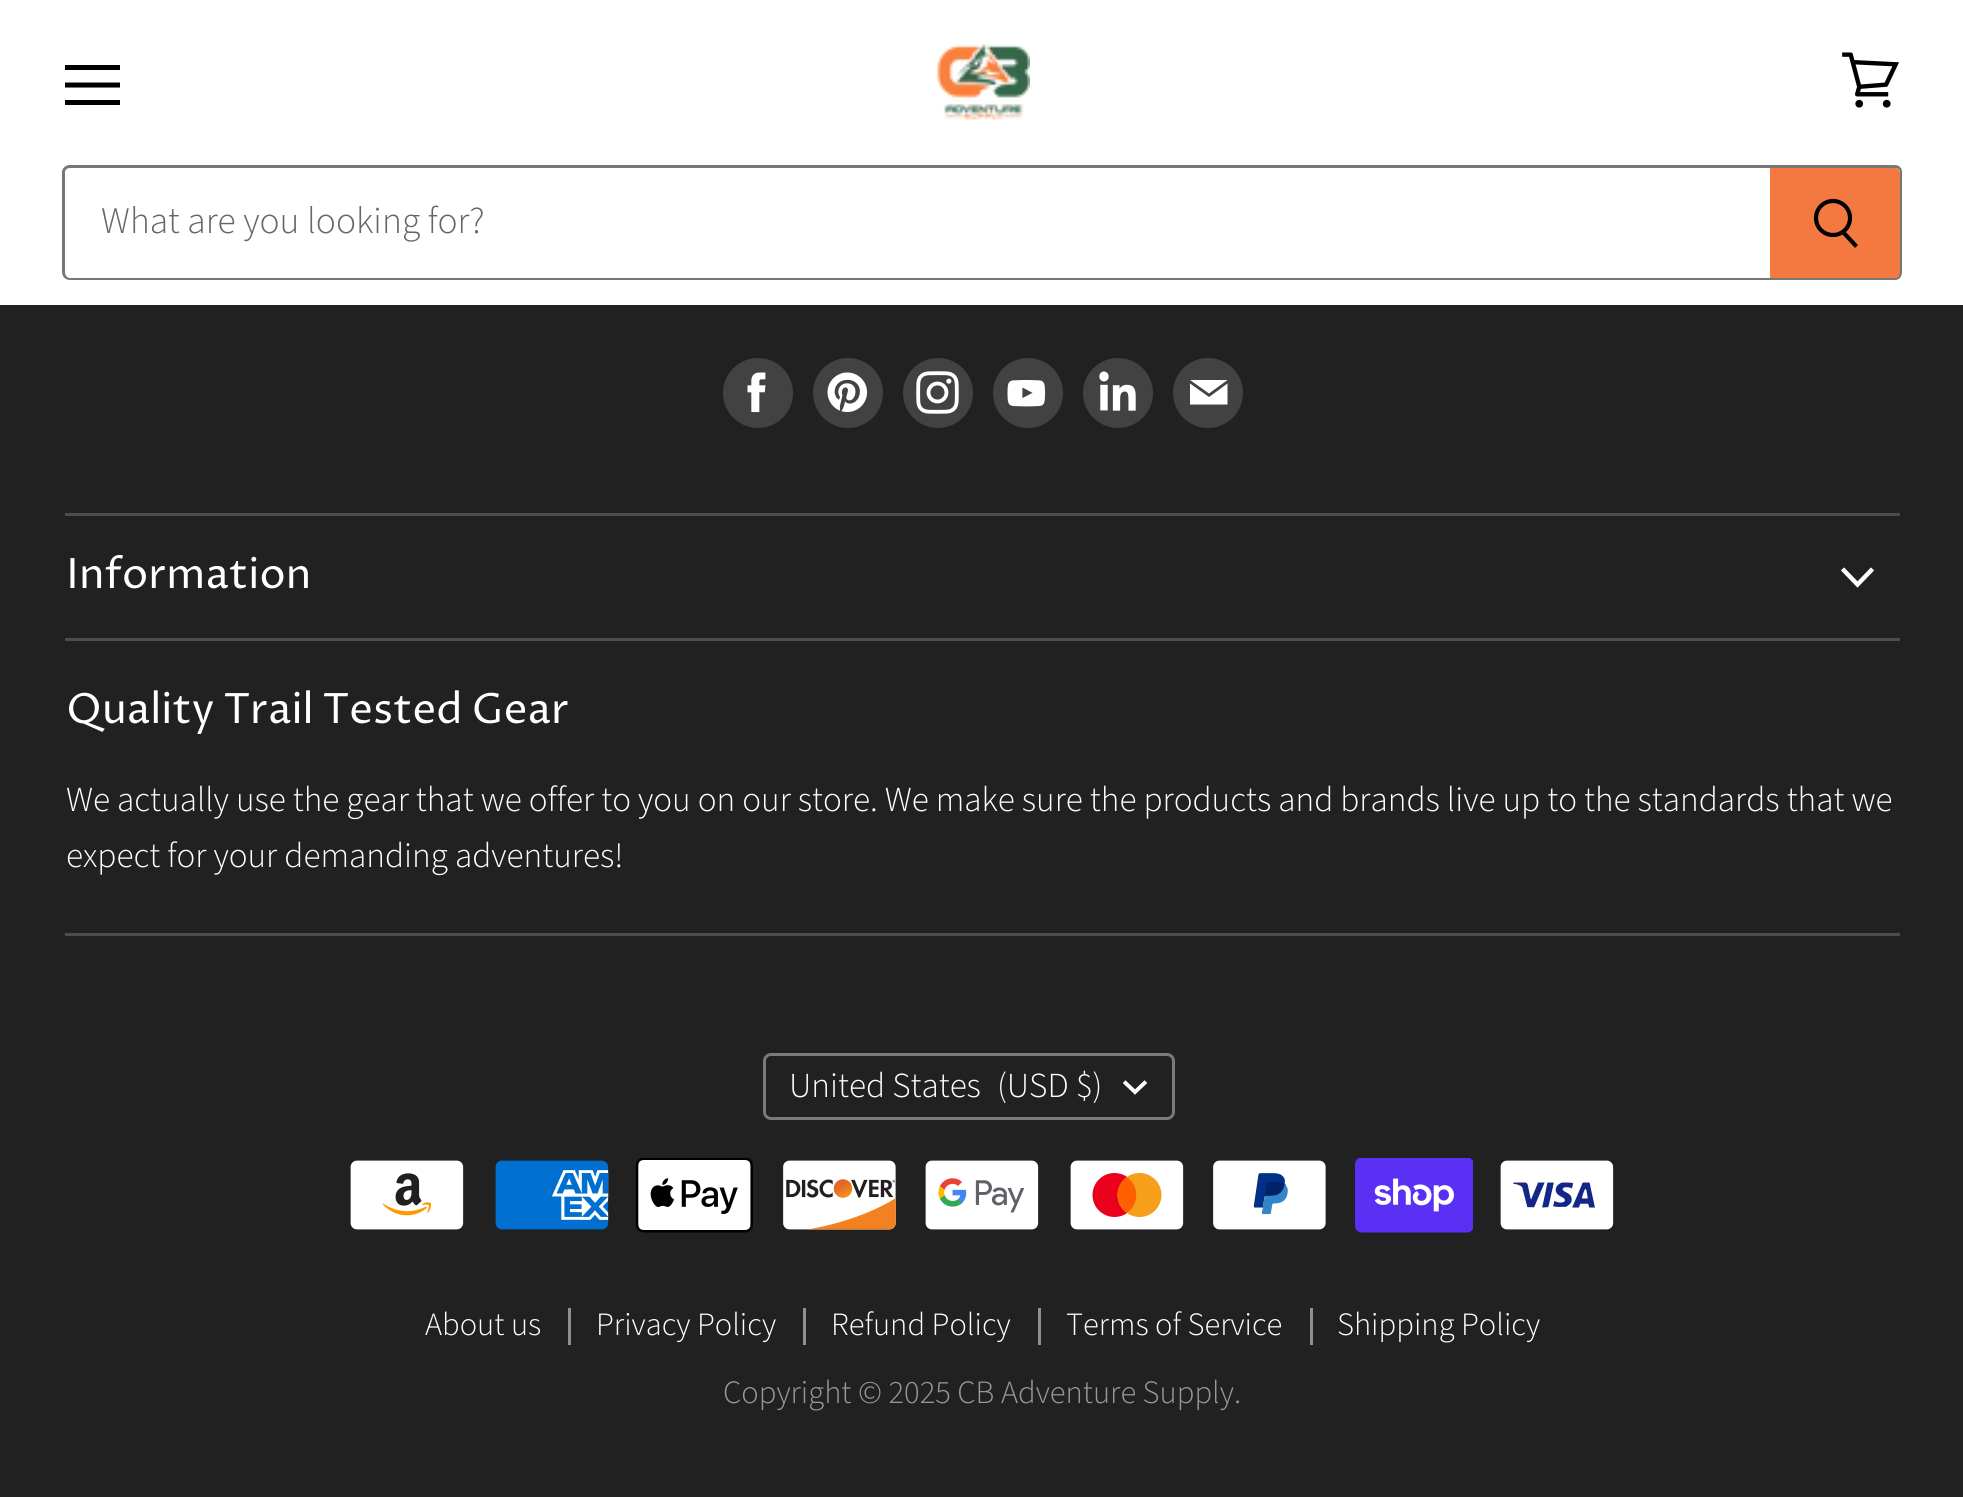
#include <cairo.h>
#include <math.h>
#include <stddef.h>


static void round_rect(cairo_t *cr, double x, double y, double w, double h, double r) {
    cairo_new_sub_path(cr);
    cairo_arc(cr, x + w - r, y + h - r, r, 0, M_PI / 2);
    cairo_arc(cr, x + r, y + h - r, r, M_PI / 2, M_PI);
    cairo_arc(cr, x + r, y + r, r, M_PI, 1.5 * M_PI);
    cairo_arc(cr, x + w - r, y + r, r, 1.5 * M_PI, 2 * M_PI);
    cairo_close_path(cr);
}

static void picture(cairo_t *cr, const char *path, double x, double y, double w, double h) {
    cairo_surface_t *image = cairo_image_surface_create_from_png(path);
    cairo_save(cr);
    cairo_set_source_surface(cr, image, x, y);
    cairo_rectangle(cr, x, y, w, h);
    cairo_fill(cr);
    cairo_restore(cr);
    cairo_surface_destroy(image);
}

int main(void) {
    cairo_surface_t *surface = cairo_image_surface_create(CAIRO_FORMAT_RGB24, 1963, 1497);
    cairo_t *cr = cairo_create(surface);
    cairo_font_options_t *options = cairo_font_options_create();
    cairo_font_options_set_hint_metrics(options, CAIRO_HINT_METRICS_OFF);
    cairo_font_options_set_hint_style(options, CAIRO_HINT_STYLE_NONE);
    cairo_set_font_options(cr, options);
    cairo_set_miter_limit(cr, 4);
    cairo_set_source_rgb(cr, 0.129, 0.129, 0.129);
    cairo_paint(cr);
    cairo_set_source_rgb(cr, 1, 1, 1);
    cairo_rectangle(cr, 0, 0, 1963, 305);
    cairo_fill(cr);
    cairo_set_source_rgb(cr, 0, 0, 0);
    cairo_rectangle(cr, 65, 65, 55, 5);
    cairo_fill(cr);
    cairo_new_path(cr);
    cairo_move_to(cr, 117.5, 85);
    cairo_line_to(cr, 67.5, 85);
    cairo_set_line_width(cr, 5);
    cairo_set_line_cap(cr, CAIRO_LINE_CAP_SQUARE);
    cairo_set_line_join(cr, CAIRO_LINE_JOIN_ROUND);
    cairo_stroke(cr);
    cairo_rectangle(cr, 65, 100, 55, 5);
    cairo_fill(cr);
    picture(cr, "img1.png", 1842, 52, 57, 56);
    picture(cr, "img2.png", 936, 44, 94, 76);
    cairo_set_source_rgb(cr, 0.467, 0.467, 0.467);
    cairo_set_fill_rule(cr, CAIRO_FILL_RULE_EVEN_ODD);
    cairo_new_path(cr);
    cairo_move_to(cr, 70, 165);
    cairo_line_to(cr, 1770, 165);
    cairo_line_to(cr, 1770, 280);
    cairo_line_to(cr, 70, 280);
    cairo_curve_to(cr, 66, 280, 62, 277, 62, 272);
    cairo_line_to(cr, 62, 172);
    cairo_curve_to(cr, 62, 168, 66, 165, 70, 165);
    cairo_close_path(cr);
    cairo_move_to(cr, 70, 168);
    cairo_line_to(cr, 1770, 168);
    cairo_line_to(cr, 1770, 278);
    cairo_line_to(cr, 70, 278);
    cairo_curve_to(cr, 67, 278, 65, 275, 65, 272);
    cairo_line_to(cr, 65, 172);
    cairo_curve_to(cr, 65, 170, 67, 168, 70, 168);
    cairo_close_path(cr);
    cairo_fill(cr);
    cairo_select_font_face(cr, "Source Sans Pro Light", CAIRO_FONT_SLANT_NORMAL, CAIRO_FONT_WEIGHT_NORMAL);
    cairo_set_font_size(cr, 37.5);
    cairo_set_source_rgb(cr, 0.4, 0.4, 0.4);
    cairo_move_to(cr, 101, 233);
    cairo_show_text(cr, "What are you looking for?");
    cairo_set_source_rgb(cr, 0.953, 0.475, 0.251);
    cairo_new_path(cr);
    cairo_move_to(cr, 1770, 168);
    cairo_line_to(cr, 1895, 168);
    cairo_curve_to(cr, 1898, 168, 1900, 170, 1900, 173);
    cairo_line_to(cr, 1900, 273);
    cairo_curve_to(cr, 1900, 276, 1898, 278, 1895, 278);
    cairo_line_to(cr, 1770, 278);
    cairo_close_path(cr);
    cairo_fill(cr);
    cairo_set_source_rgb(cr, 0.467, 0.467, 0.467);
    cairo_new_path(cr);
    cairo_move_to(cr, 1770, 165);
    cairo_line_to(cr, 1895, 165);
    cairo_curve_to(cr, 1899, 165, 1902, 168, 1902, 172);
    cairo_line_to(cr, 1902, 272);
    cairo_curve_to(cr, 1902, 277, 1899, 280, 1895, 280);
    cairo_line_to(cr, 1770, 280);
    cairo_close_path(cr);
    cairo_move_to(cr, 1770, 168);
    cairo_line_to(cr, 1895, 168);
    cairo_curve_to(cr, 1898, 168, 1900, 170, 1900, 172);
    cairo_line_to(cr, 1900, 272);
    cairo_curve_to(cr, 1900, 275, 1898, 278, 1895, 278);
    cairo_line_to(cr, 1770, 278);
    cairo_close_path(cr);
    cairo_fill(cr);
    cairo_new_path(cr);
    cairo_move_to(cr, 1856.5, 246.5);
    cairo_line_to(cr, 1842.5, 231.5);
    cairo_set_source_rgb(cr, 0, 0, 0);
    cairo_set_line_width(cr, 4.2);
    cairo_set_line_cap(cr, CAIRO_LINE_CAP_BUTT);
    cairo_set_line_join(cr, CAIRO_LINE_JOIN_MITER);
    cairo_stroke(cr);
    cairo_arc(cr, 1833, 218, 17, 0, 2 * M_PI);
    cairo_stroke(cr);
    cairo_set_source_rgb(cr, 0.302, 0.302, 0.302);
    cairo_rectangle(cr, 65, 513, 1835, 3);
    cairo_fill(cr);
    cairo_set_source_rgb(cr, 0.259, 0.259, 0.259);
    cairo_arc(cr, 758, 393, 35, 0, 2 * M_PI);
    cairo_fill(cr);
    picture(cr, "img3.png", 747, 372, 19, 41);
    cairo_arc(cr, 848, 393, 35, 0, 2 * M_PI);
    cairo_fill(cr);
    picture(cr, "img4.png", 827, 372, 41, 40);
    cairo_arc(cr, 938, 393, 35, 0, 2 * M_PI);
    cairo_fill(cr);
    picture(cr, "img5.png", 916, 371, 43, 43);
    cairo_arc(cr, 1028, 393, 35, 0, 2 * M_PI);
    cairo_fill(cr);
    picture(cr, "img6.png", 1007, 380, 39, 27);
    cairo_arc(cr, 1118, 393, 35, 0, 2 * M_PI);
    cairo_fill(cr);
    picture(cr, "img7.png", 1099, 371, 37, 40);
    cairo_arc(cr, 1208, 393, 35, 0, 2 * M_PI);
    cairo_fill(cr);
    cairo_set_source_rgb(cr, 1, 1, 1);
    cairo_new_path(cr);
    cairo_move_to(cr, 1227.5, 380);
    cairo_line_to(cr, 1190, 380);
    cairo_line_to(cr, 1209, 393.5);
    cairo_close_path(cr);
    cairo_move_to(cr, 1209, 397);
    cairo_line_to(cr, 1190, 383.5);
    cairo_line_to(cr, 1190, 404.5);
    cairo_line_to(cr, 1227.5, 404.5);
    cairo_line_to(cr, 1227.5, 383.5);
    cairo_close_path(cr);
    cairo_fill(cr);
    cairo_set_source_rgb(cr, 0.302, 0.302, 0.302);
    cairo_rectangle(cr, 65, 638, 1835, 3);
    cairo_fill(cr);
    cairo_select_font_face(cr, "Proza Libre", CAIRO_FONT_SLANT_NORMAL, CAIRO_FONT_WEIGHT_NORMAL);
    cairo_set_font_size(cr, 41.8);
    cairo_set_source_rgb(cr, 1, 1, 1);
    cairo_move_to(cr, 66, 588);
    cairo_show_text(cr, "Information");
    cairo_new_path(cr);
    cairo_move_to(cr, 1857.5, 584.5);
    cairo_line_to(cr, 1871, 570.5);
    cairo_move_to(cr, 1857.5, 584.5);
    cairo_line_to(cr, 1844, 570.5);
    cairo_set_line_width(cr, 4.4);
    cairo_set_line_cap(cr, CAIRO_LINE_CAP_SQUARE);
    cairo_stroke(cr);
    cairo_set_source_rgb(cr, 0.302, 0.302, 0.302);
    cairo_rectangle(cr, 65, 933, 1835, 3);
    cairo_fill(cr);
    cairo_set_source_rgb(cr, 1, 1, 1);
    cairo_move_to(cr, 66, 723);
    cairo_show_text(cr, "Quality Trail Tested Gear");
    cairo_select_font_face(cr, "Source Sans Pro Light", CAIRO_FONT_SLANT_NORMAL, CAIRO_FONT_WEIGHT_NORMAL);
    cairo_set_font_size(cr, 35.15);
    cairo_move_to(cr, 66, 811);
    cairo_show_text(cr, "We actually use the gear that we offer to you on our store. We make sure the products and brands live up to the standards that we");
    cairo_move_to(cr, 66, 867);
    cairo_show_text(cr, "expect for your demanding adventures!");
    round_rect(cr, 764.5, 1054.5, 409, 64, 6.5);
    cairo_set_source_rgb(cr, 0.478, 0.478, 0.478);
    cairo_set_line_width(cr, 3);
    cairo_set_line_cap(cr, CAIRO_LINE_CAP_BUTT);
    cairo_stroke(cr);
    cairo_set_source_rgb(cr, 1, 1, 1);
    cairo_move_to(cr, 789, 1097);
    cairo_show_text(cr, "United States");
    cairo_move_to(cr, 997, 1097);
    cairo_show_text(cr, "(USD $)");
    cairo_new_path(cr);
    cairo_move_to(cr, 1135, 1092);
    cairo_line_to(cr, 1144.5, 1083);
    cairo_move_to(cr, 1135, 1092);
    cairo_line_to(cr, 1125.5, 1083);
    cairo_set_line_width(cr, 3.9);
    cairo_set_line_cap(cr, CAIRO_LINE_CAP_SQUARE);
    cairo_stroke(cr);
    picture(cr, "img8.png", 350, 1160, 114, 70);
    picture(cr, "img9.png", 495, 1160, 114, 70);
    picture(cr, "img10.png", 635, 1158, 118, 75);
    picture(cr, "img11.png", 783, 1160, 113, 70);
    picture(cr, "img12.png", 925, 1160, 114, 70);
    picture(cr, "img13.png", 1070, 1160, 114, 70);
    picture(cr, "img14.png", 1213, 1160, 113, 70);
    picture(cr, "img15.png", 1355, 1158, 118, 75);
    picture(cr, "img16.png", 1500, 1160, 114, 70);
    cairo_set_source_rgb(cr, 0.565, 0.565, 0.565);
    cairo_rectangle(cr, 568, 1308, 3, 37);
    cairo_fill(cr);
    cairo_set_font_size(cr, 32.5);
    cairo_set_source_rgb(cr, 1, 1, 1);
    cairo_move_to(cr, 425, 1335);
    cairo_show_text(cr, "About us");
    cairo_set_source_rgb(cr, 0.565, 0.565, 0.565);
    cairo_rectangle(cr, 803, 1308, 3, 37);
    cairo_fill(cr);
    cairo_set_source_rgb(cr, 1, 1, 1);
    cairo_move_to(cr, 596, 1335);
    cairo_show_text(cr, "Privacy Policy");
    cairo_set_source_rgb(cr, 0.565, 0.565, 0.565);
    cairo_rectangle(cr, 1038, 1308, 3, 37);
    cairo_fill(cr);
    cairo_set_source_rgb(cr, 1, 1, 1);
    cairo_move_to(cr, 831, 1335);
    cairo_show_text(cr, "Refund Policy");
    cairo_set_source_rgb(cr, 0.565, 0.565, 0.565);
    cairo_rectangle(cr, 1310, 1308, 3, 37);
    cairo_fill(cr);
    cairo_set_source_rgb(cr, 1, 1, 1);
    cairo_move_to(cr, 1066, 1335);
    cairo_show_text(cr, "Terms of Service");
    cairo_move_to(cr, 1337, 1335);
    cairo_show_text(cr, "Shipping Policy");
    cairo_set_source_rgb(cr, 0.6, 0.6, 0.6);
    cairo_move_to(cr, 723, 1403);
    cairo_show_text(cr, "Copyright © 2025 CB Adventure Supply.");
    cairo_surface_write_to_png(surface, "page.png");
    cairo_font_options_destroy(options);
    cairo_destroy(cr);
    cairo_surface_destroy(surface);
    return 0;
}
